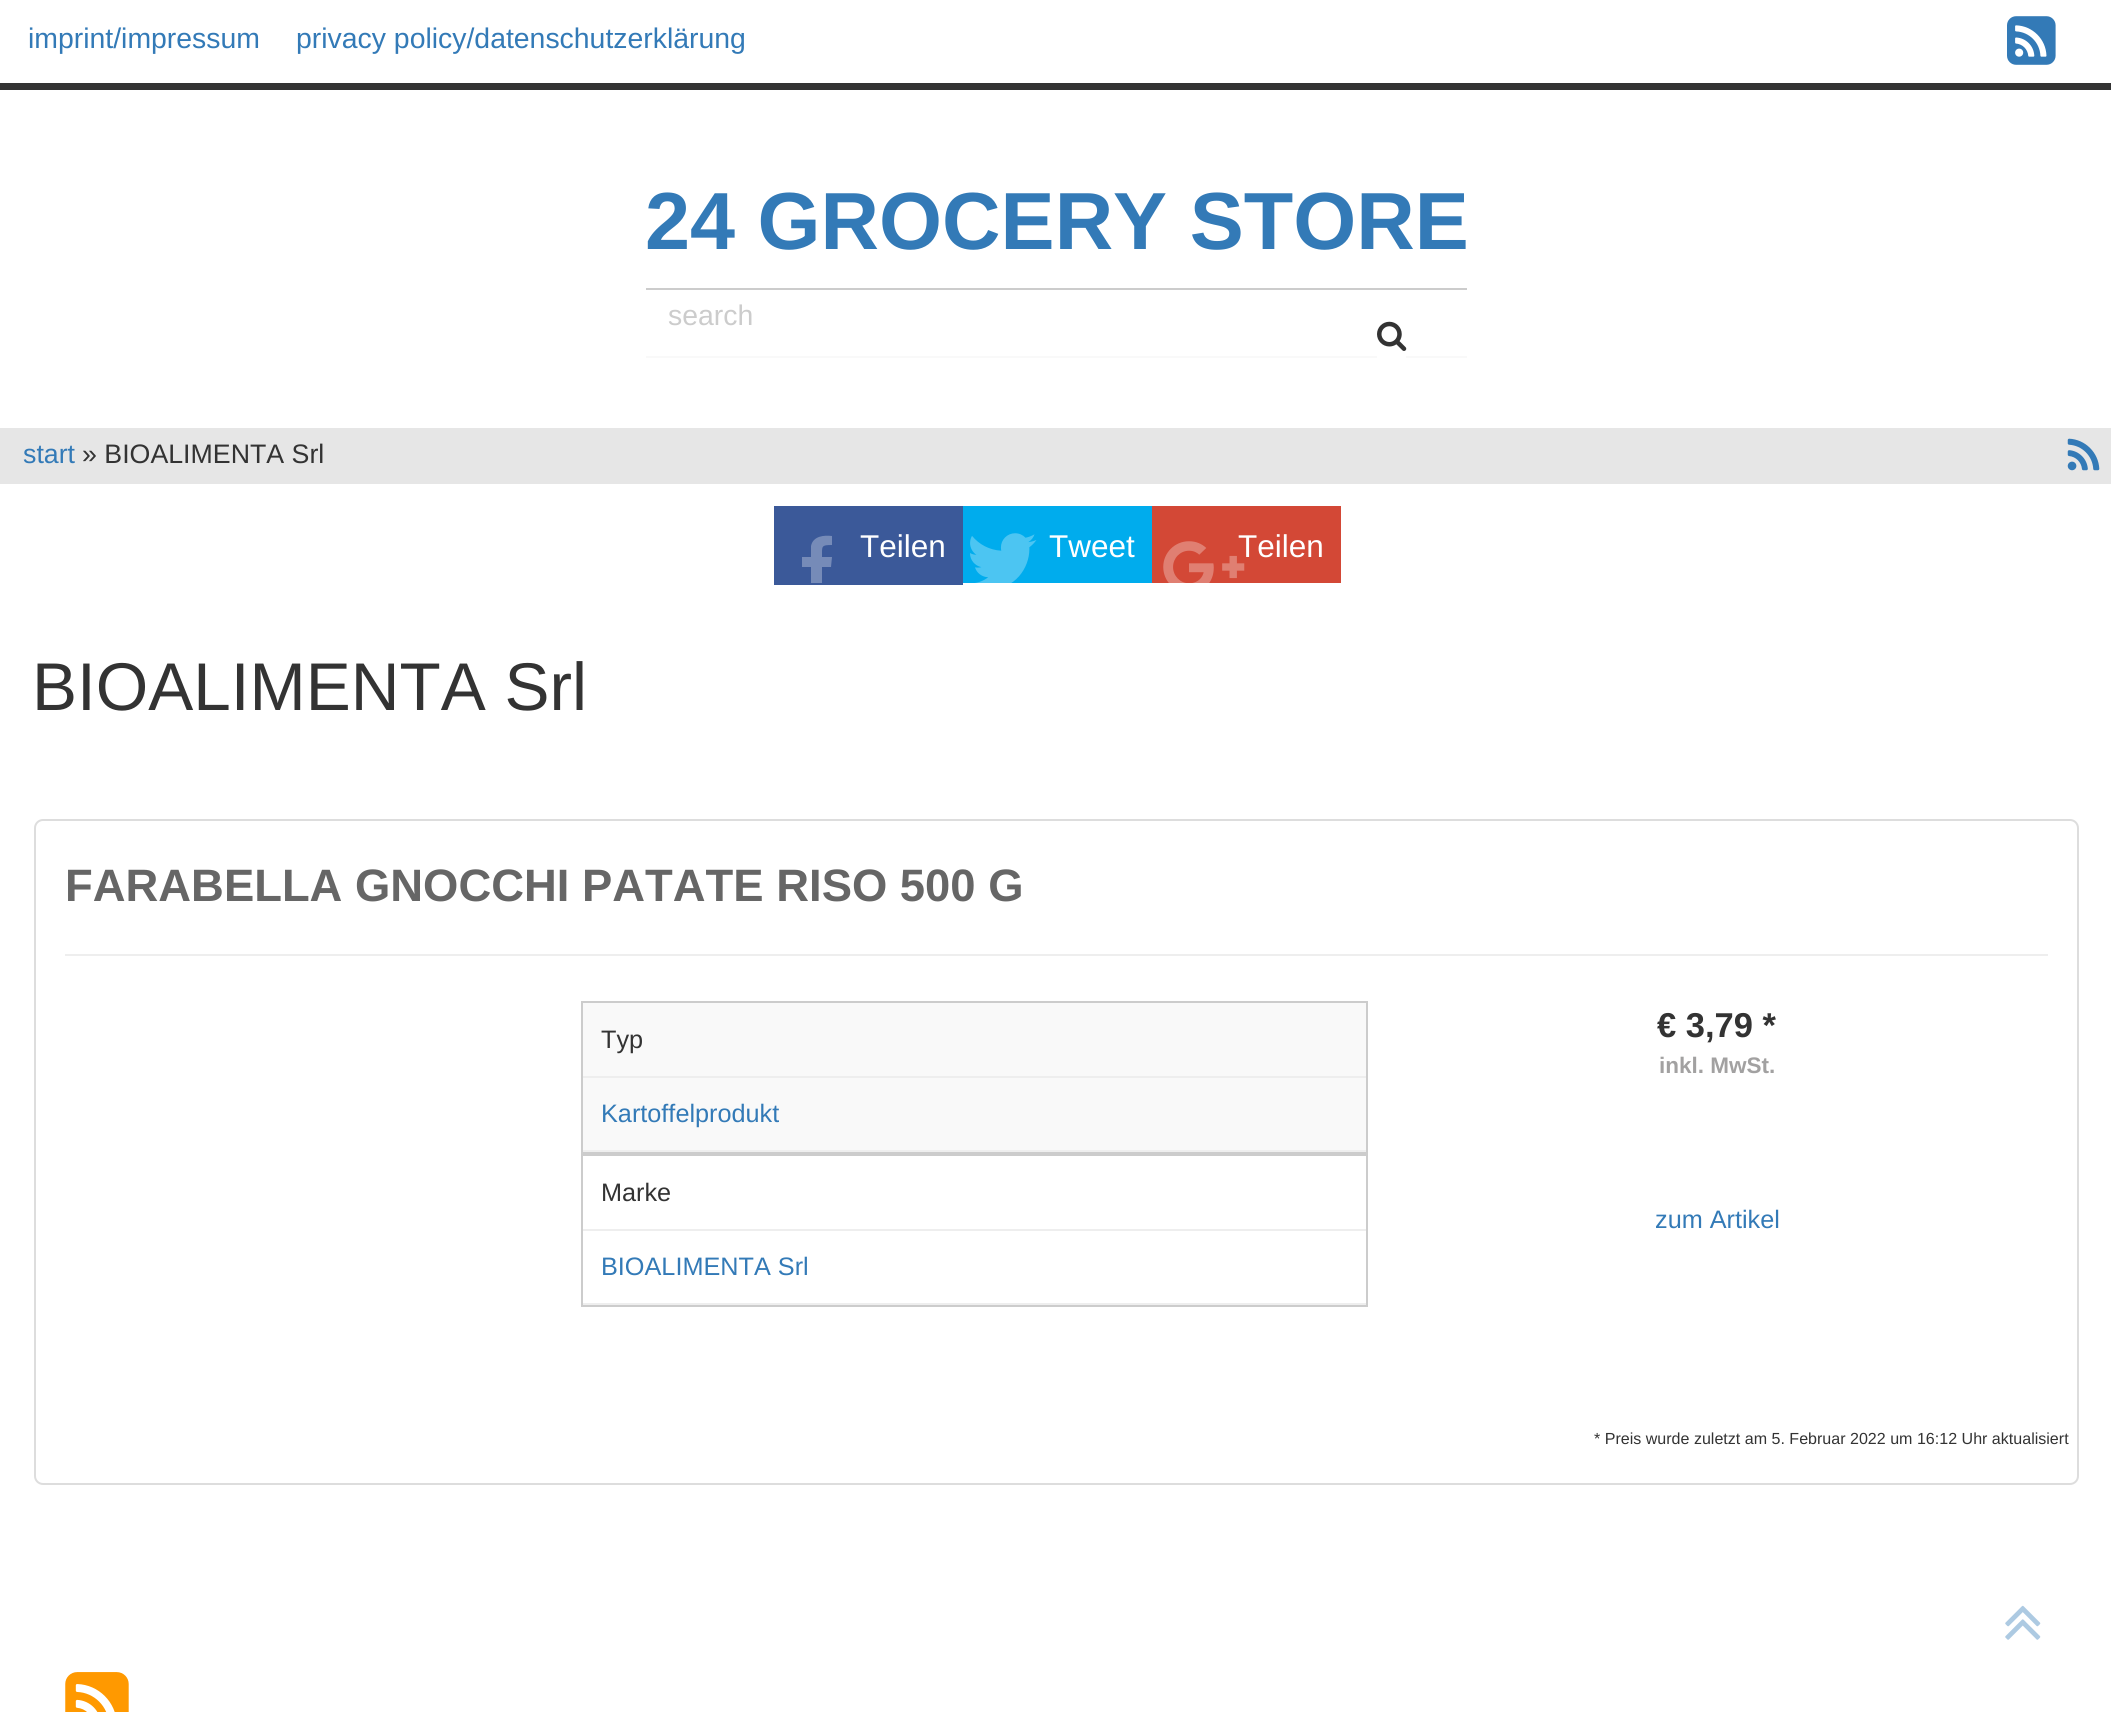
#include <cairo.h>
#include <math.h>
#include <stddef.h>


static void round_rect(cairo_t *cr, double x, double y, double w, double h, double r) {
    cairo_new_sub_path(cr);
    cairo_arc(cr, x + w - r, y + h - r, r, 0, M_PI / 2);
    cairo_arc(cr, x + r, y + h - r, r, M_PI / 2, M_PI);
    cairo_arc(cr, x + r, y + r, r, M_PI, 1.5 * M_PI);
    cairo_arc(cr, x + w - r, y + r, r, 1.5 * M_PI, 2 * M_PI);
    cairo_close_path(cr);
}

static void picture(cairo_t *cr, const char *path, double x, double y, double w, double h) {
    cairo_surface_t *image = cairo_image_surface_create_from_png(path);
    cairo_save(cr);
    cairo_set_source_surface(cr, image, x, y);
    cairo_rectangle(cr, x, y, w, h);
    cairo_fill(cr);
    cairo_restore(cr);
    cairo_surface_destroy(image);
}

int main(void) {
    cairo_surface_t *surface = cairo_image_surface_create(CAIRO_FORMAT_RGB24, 2111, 1712);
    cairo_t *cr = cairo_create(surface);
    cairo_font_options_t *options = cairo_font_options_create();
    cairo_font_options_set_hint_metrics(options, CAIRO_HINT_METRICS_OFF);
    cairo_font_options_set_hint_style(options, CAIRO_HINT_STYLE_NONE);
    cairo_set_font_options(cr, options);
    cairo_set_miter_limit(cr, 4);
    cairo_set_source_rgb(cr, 1, 1, 1);
    cairo_paint(cr);
    cairo_set_source_rgb(cr, 0.2, 0.2, 0.2);
    cairo_rectangle(cr, 0, 83, 2111, 7);
    cairo_fill(cr);
    cairo_select_font_face(cr, "Liberation Sans", CAIRO_FONT_SLANT_NORMAL, CAIRO_FONT_WEIGHT_NORMAL);
    cairo_set_font_size(cr, 28.4);
    cairo_set_source_rgb(cr, 0.2, 0.478, 0.718);
    cairo_move_to(cr, 28, 48);
    cairo_show_text(cr, "imprint/impressum");
    cairo_move_to(cr, 296, 48);
    cairo_show_text(cr, "privacy policy/datenschutzerklärung");
    picture(cr, "img1.png", 2007, 16, 49, 49);
    cairo_select_font_face(cr, "Liberation Sans", CAIRO_FONT_SLANT_NORMAL, CAIRO_FONT_WEIGHT_BOLD);
    cairo_set_font_size(cr, 81);
    cairo_move_to(cr, 645, 249);
    cairo_show_text(cr, "24 GROCERY STORE");
    cairo_set_source_rgb(cr, 0.976, 0.976, 0.976);
    cairo_rectangle(cr, 646, 356, 821, 2);
    cairo_fill(cr);
    cairo_set_source_rgb(cr, 0.8, 0.8, 0.8);
    cairo_rectangle(cr, 646, 288, 821, 2);
    cairo_fill(cr);
    cairo_select_font_face(cr, "Liberation Sans", CAIRO_FONT_SLANT_NORMAL, CAIRO_FONT_WEIGHT_NORMAL);
    cairo_set_font_size(cr, 28.4);
    cairo_move_to(cr, 668, 325);
    cairo_show_text(cr, "search");
    cairo_set_source_rgb(cr, 1, 1, 1);
    cairo_rectangle(cr, 1377, 356, 29, 2);
    cairo_fill(cr);
    picture(cr, "img2.png", 1377, 321, 30, 30);
    cairo_set_source_rgb(cr, 0.902, 0.902, 0.902);
    cairo_rectangle(cr, 0, 428, 2111, 56);
    cairo_fill(cr);
    cairo_set_font_size(cr, 26.75);
    cairo_set_source_rgb(cr, 0.2, 0.478, 0.718);
    cairo_move_to(cr, 23, 463);
    cairo_show_text(cr, "start");
    cairo_set_source_rgb(cr, 0.2, 0.2, 0.2);
    cairo_move_to(cr, 82, 463);
    cairo_show_text(cr, "» BIOALIMENTA Srl");
    picture(cr, "img3.png", 2067, 438, 33, 33);
    cairo_set_source_rgb(cr, 0.231, 0.349, 0.6);
    cairo_rectangle(cr, 774, 506, 189, 79);
    cairo_fill(cr);
    cairo_save(cr);
    cairo_rectangle(cr, 774, 506, 189, 77);
    cairo_clip(cr);
    cairo_set_source_rgb(cr, 0.463, 0.545, 0.722);
    cairo_new_path(cr);
    cairo_move_to(cr, 832, 536);
    cairo_curve_to(cr, 824, 535, 813, 536, 811, 546);
    cairo_line_to(cr, 811, 557);
    cairo_line_to(cr, 802, 557);
    cairo_line_to(cr, 802, 567);
    cairo_line_to(cr, 811, 567);
    cairo_line_to(cr, 811, 594);
    cairo_line_to(cr, 822, 594);
    cairo_line_to(cr, 822, 567);
    cairo_line_to(cr, 831, 567);
    cairo_line_to(cr, 832, 557);
    cairo_line_to(cr, 822, 557);
    cairo_curve_to(cr, 822, 546, 821, 545, 832, 545);
    cairo_close_path(cr);
    cairo_fill(cr);
    cairo_restore(cr);
    cairo_set_font_size(cr, 31.5);
    cairo_set_source_rgb(cr, 1, 1, 1);
    cairo_move_to(cr, 860, 557);
    cairo_show_text(cr, "Teilen");
    cairo_set_source_rgb(cr, 0, 0.675, 0.929);
    cairo_rectangle(cr, 963, 506, 189, 77);
    cairo_fill(cr);
    picture(cr, "img4.png", 970, 533, 67, 50);
    cairo_set_source_rgb(cr, 1, 1, 1);
    cairo_move_to(cr, 1049, 557);
    cairo_show_text(cr, "Tweet");
    cairo_set_source_rgb(cr, 0.827, 0.282, 0.212);
    cairo_rectangle(cr, 1152, 506, 189, 77);
    cairo_fill(cr);
    cairo_set_source_rgb(cr, 1, 1, 1);
    cairo_move_to(cr, 1238, 557);
    cairo_show_text(cr, "Teilen");
    picture(cr, "img5.png", 1163, 541, 82, 42);
    cairo_set_font_size(cr, 67.5);
    cairo_set_source_rgb(cr, 0.2, 0.2, 0.2);
    cairo_move_to(cr, 32, 710);
    cairo_show_text(cr, "BIOALIMENTA Srl");
    round_rect(cr, 35, 820, 2043, 664, 8);
    cairo_set_source_rgb(cr, 0.867, 0.867, 0.867);
    cairo_stroke(cr);
    cairo_select_font_face(cr, "Liberation Sans", CAIRO_FONT_SLANT_NORMAL, CAIRO_FONT_WEIGHT_BOLD);
    cairo_set_font_size(cr, 45.4);
    cairo_set_source_rgb(cr, 0.4, 0.4, 0.4);
    cairo_move_to(cr, 65, 901);
    cairo_show_text(cr, "FARABELLA GNOCCHI PATATE RISO 500 G");
    cairo_set_source_rgb(cr, 0.933, 0.933, 0.933);
    cairo_rectangle(cr, 65, 954, 1983, 2);
    cairo_fill(cr);
    cairo_set_source_rgb(cr, 0.976, 0.976, 0.976);
    cairo_rectangle(cr, 583, 1003, 783, 147);
    cairo_fill(cr);
    cairo_rectangle(cr, 582, 1002, 785, 151);
    cairo_set_source_rgb(cr, 0.8, 0.8, 0.8);
    cairo_stroke(cr);
    cairo_set_source_rgb(cr, 0.933, 0.933, 0.933);
    cairo_rectangle(cr, 583, 1076, 783, 2);
    cairo_fill(cr);
    cairo_select_font_face(cr, "Liberation Sans", CAIRO_FONT_SLANT_NORMAL, CAIRO_FONT_WEIGHT_NORMAL);
    cairo_set_font_size(cr, 25.25);
    cairo_set_source_rgb(cr, 0.2, 0.2, 0.2);
    cairo_move_to(cr, 601, 1048);
    cairo_show_text(cr, "Typ");
    cairo_set_source_rgb(cr, 0.933, 0.933, 0.933);
    cairo_rectangle(cr, 583, 1150, 783, 2);
    cairo_fill(cr);
    cairo_set_source_rgb(cr, 0.2, 0.478, 0.718);
    cairo_move_to(cr, 601, 1122);
    cairo_show_text(cr, "Kartoffelprodukt");
    cairo_rectangle(cr, 582, 1155, 785, 151);
    cairo_set_source_rgb(cr, 0.8, 0.8, 0.8);
    cairo_stroke(cr);
    cairo_set_source_rgb(cr, 0.933, 0.933, 0.933);
    cairo_rectangle(cr, 583, 1229, 783, 2);
    cairo_fill(cr);
    cairo_set_source_rgb(cr, 0.2, 0.2, 0.2);
    cairo_move_to(cr, 601, 1201);
    cairo_show_text(cr, "Marke");
    cairo_set_source_rgb(cr, 0.933, 0.933, 0.933);
    cairo_rectangle(cr, 583, 1303, 783, 2);
    cairo_fill(cr);
    cairo_set_source_rgb(cr, 0.2, 0.478, 0.718);
    cairo_move_to(cr, 601, 1275);
    cairo_show_text(cr, "BIOALIMENTA Srl");
    cairo_select_font_face(cr, "Liberation Sans", CAIRO_FONT_SLANT_NORMAL, CAIRO_FONT_WEIGHT_BOLD);
    cairo_set_font_size(cr, 34.5);
    cairo_set_source_rgb(cr, 0.2, 0.2, 0.2);
    cairo_move_to(cr, 1657, 1037);
    cairo_show_text(cr, "€ 3,79 *");
    cairo_set_font_size(cr, 22.5);
    cairo_set_source_rgb(cr, 0.635, 0.631, 0.631);
    cairo_move_to(cr, 1659, 1073);
    cairo_show_text(cr, "inkl. MwSt.");
    cairo_select_font_face(cr, "Liberation Sans", CAIRO_FONT_SLANT_NORMAL, CAIRO_FONT_WEIGHT_NORMAL);
    cairo_set_font_size(cr, 25.25);
    cairo_set_source_rgb(cr, 0.2, 0.478, 0.718);
    cairo_move_to(cr, 1655, 1228);
    cairo_show_text(cr, "zum Artikel");
    cairo_set_font_size(cr, 16.05);
    cairo_set_source_rgb(cr, 0.2, 0.2, 0.2);
    cairo_move_to(cr, 1594, 1444);
    cairo_show_text(cr, "* Preis wurde zuletzt am 5. Februar 2022 um 16:12 Uhr aktualisiert");
    picture(cr, "img6.png", 2005, 1605, 36, 35);
    picture(cr, "img7.png", 65, 1672, 64, 40);
    cairo_surface_write_to_png(surface, "page.png");
    cairo_font_options_destroy(options);
    cairo_destroy(cr);
    cairo_surface_destroy(surface);
    return 0;
}
